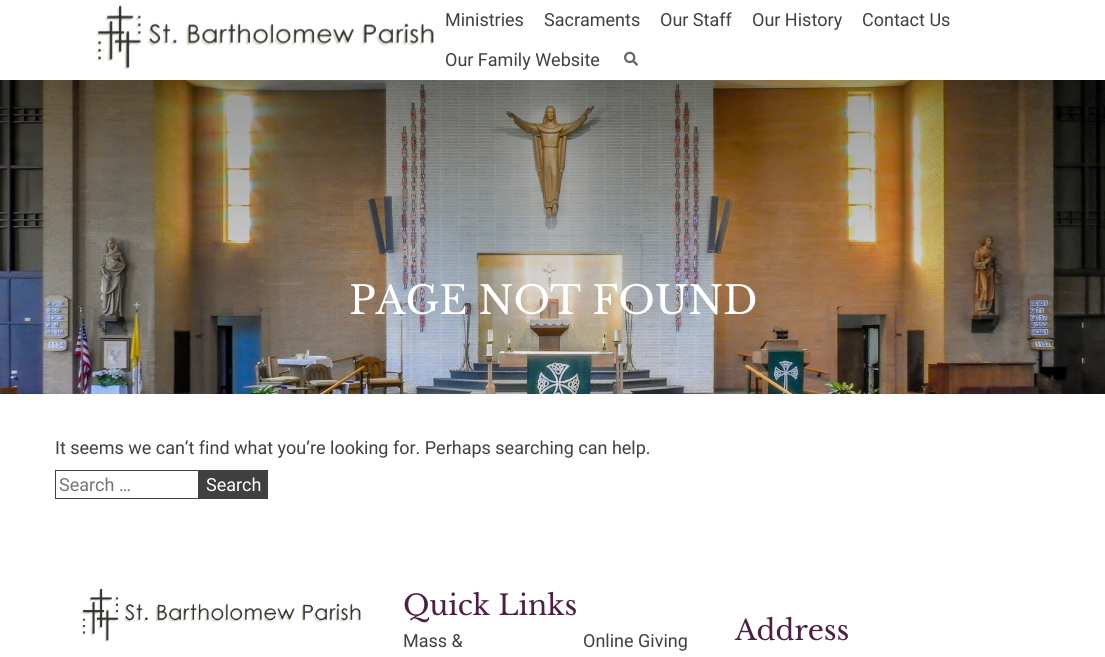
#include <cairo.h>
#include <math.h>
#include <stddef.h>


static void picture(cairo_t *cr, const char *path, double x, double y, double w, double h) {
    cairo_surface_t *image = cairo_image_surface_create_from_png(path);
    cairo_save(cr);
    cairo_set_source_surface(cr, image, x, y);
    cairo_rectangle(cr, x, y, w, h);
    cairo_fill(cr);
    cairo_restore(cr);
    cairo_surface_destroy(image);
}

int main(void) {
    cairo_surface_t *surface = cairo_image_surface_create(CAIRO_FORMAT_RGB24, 1105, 657);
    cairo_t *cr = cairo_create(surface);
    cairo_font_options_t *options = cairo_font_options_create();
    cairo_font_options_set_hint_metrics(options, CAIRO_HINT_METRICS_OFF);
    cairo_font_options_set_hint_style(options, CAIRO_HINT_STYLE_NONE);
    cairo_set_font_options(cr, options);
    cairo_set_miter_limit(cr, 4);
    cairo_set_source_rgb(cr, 1, 1, 1);
    cairo_paint(cr);
    picture(cr, "img1.png", 96, 5, 338, 65);
    cairo_select_font_face(cr, "Roboto", CAIRO_FONT_SLANT_NORMAL, CAIRO_FONT_WEIGHT_NORMAL);
    cairo_set_font_size(cr, 18);
    cairo_set_source_rgb(cr, 0.251, 0.251, 0.251);
    cairo_move_to(cr, 445, 26);
    cairo_show_text(cr, "Ministries");
    cairo_move_to(cr, 544, 26);
    cairo_show_text(cr, "Sacraments");
    cairo_move_to(cr, 660, 26);
    cairo_show_text(cr, "Our Staff");
    cairo_move_to(cr, 752, 26);
    cairo_show_text(cr, "Our History");
    cairo_move_to(cr, 862, 26);
    cairo_show_text(cr, "Contact Us");
    cairo_move_to(cr, 445, 66);
    cairo_show_text(cr, "Our Family Website");
    picture(cr, "img2.png", 624, 51, 14, 15);
    picture(cr, "img3.png", 0, 80, 1105, 314);
    cairo_select_font_face(cr, "Libre Baskerville", CAIRO_FONT_SLANT_NORMAL, CAIRO_FONT_WEIGHT_NORMAL);
    cairo_set_font_size(cr, 38.75);
    cairo_set_source_rgb(cr, 1, 1, 1);
    cairo_move_to(cr, 349, 314);
    cairo_show_text(cr, "PAGE NOT FOUND");
    cairo_select_font_face(cr, "Roboto", CAIRO_FONT_SLANT_NORMAL, CAIRO_FONT_WEIGHT_NORMAL);
    cairo_set_font_size(cr, 18);
    cairo_set_source_rgb(cr, 0.251, 0.251, 0.251);
    cairo_move_to(cr, 55, 454);
    cairo_show_text(cr, "It seems we can’t find what you’re looking for. Perhaps searching can help.");
    cairo_rectangle(cr, 55.5, 470.5, 212, 28);
    cairo_set_line_width(cr, 1);
    cairo_stroke(cr);
    cairo_set_source_rgb(cr, 0.459, 0.459, 0.459);
    cairo_move_to(cr, 59, 491);
    cairo_show_text(cr, "Search …");
    cairo_set_source_rgb(cr, 0.251, 0.251, 0.251);
    cairo_rectangle(cr, 198, 471, 69, 27);
    cairo_fill(cr);
    cairo_set_source_rgb(cr, 1, 1, 1);
    cairo_move_to(cr, 206, 491);
    cairo_show_text(cr, "Search");
    picture(cr, "img4.png", 81, 588, 280, 54);
    cairo_select_font_face(cr, "Libre Baskerville", CAIRO_FONT_SLANT_NORMAL, CAIRO_FONT_WEIGHT_NORMAL);
    cairo_set_font_size(cr, 28);
    cairo_set_source_rgb(cr, 0.298, 0.125, 0.263);
    cairo_move_to(cr, 403, 615);
    cairo_show_text(cr, "Quick Links");
    cairo_select_font_face(cr, "Roboto", CAIRO_FONT_SLANT_NORMAL, CAIRO_FONT_WEIGHT_NORMAL);
    cairo_set_font_size(cr, 18);
    cairo_set_source_rgb(cr, 0.251, 0.251, 0.251);
    cairo_move_to(cr, 403, 647);
    cairo_show_text(cr, "Mass &");
    cairo_move_to(cr, 583, 647);
    cairo_show_text(cr, "Online Giving");
    cairo_select_font_face(cr, "Libre Baskerville", CAIRO_FONT_SLANT_NORMAL, CAIRO_FONT_WEIGHT_NORMAL);
    cairo_set_font_size(cr, 28);
    cairo_set_source_rgb(cr, 0.298, 0.125, 0.263);
    cairo_move_to(cr, 735, 640);
    cairo_show_text(cr, "Address");
    cairo_surface_write_to_png(surface, "page.png");
    cairo_font_options_destroy(options);
    cairo_destroy(cr);
    cairo_surface_destroy(surface);
    return 0;
}
